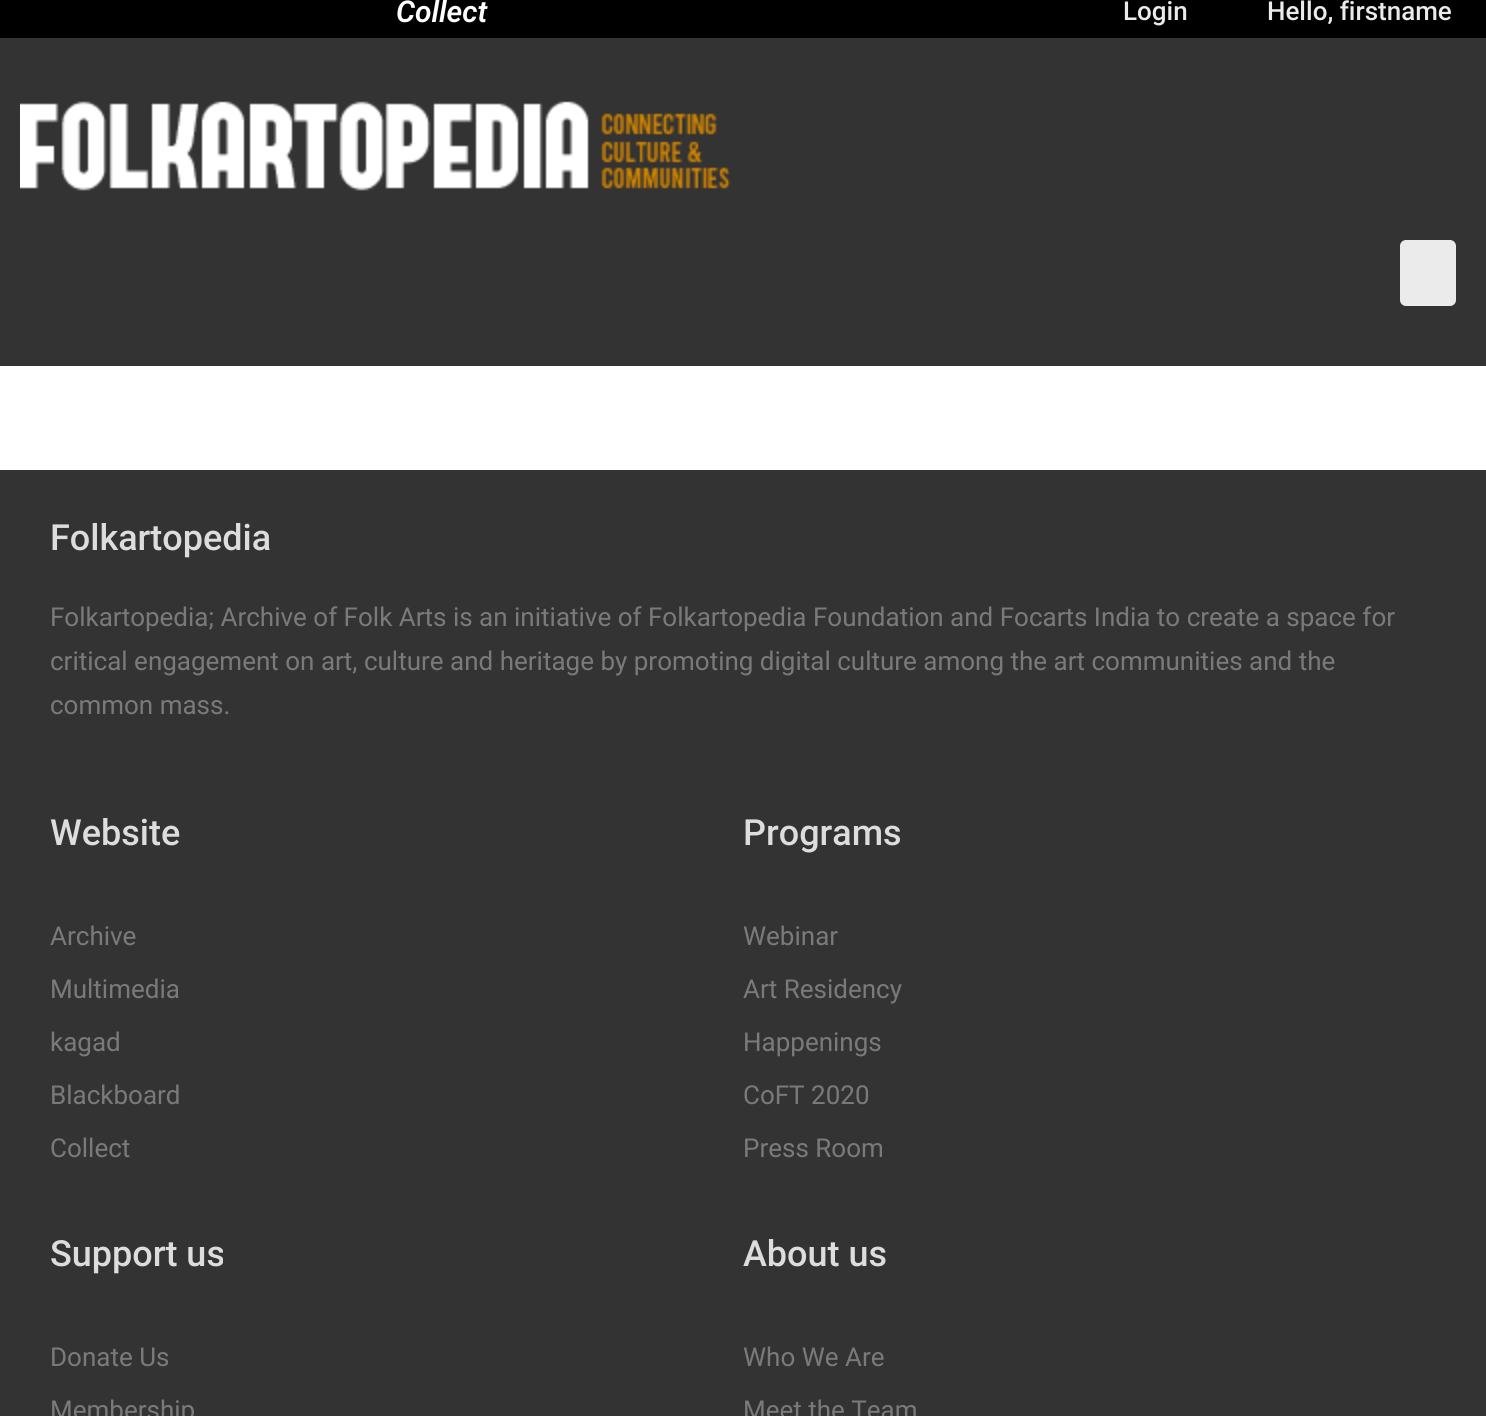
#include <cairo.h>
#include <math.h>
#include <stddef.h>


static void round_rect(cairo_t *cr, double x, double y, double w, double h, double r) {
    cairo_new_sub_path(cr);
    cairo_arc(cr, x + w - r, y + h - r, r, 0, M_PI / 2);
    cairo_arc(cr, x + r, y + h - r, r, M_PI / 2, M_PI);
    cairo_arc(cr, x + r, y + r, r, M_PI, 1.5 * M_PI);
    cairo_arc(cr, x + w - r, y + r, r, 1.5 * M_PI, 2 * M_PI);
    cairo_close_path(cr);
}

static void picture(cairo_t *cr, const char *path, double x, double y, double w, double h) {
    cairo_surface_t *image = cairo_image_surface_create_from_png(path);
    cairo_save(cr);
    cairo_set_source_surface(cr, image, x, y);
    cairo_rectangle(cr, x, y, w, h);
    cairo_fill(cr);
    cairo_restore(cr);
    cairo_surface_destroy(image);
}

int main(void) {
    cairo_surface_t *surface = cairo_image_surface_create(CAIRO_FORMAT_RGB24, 1486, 1416);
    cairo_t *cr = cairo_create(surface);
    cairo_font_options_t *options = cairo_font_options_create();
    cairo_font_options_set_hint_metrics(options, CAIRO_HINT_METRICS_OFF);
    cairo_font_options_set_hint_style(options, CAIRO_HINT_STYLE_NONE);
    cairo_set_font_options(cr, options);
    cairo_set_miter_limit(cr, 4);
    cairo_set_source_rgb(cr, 1, 1, 1);
    cairo_paint(cr);
    cairo_set_source_rgb(cr, 0, 0, 0);
    cairo_rectangle(cr, 0, 0, 1486, 38);
    cairo_fill(cr);
    cairo_select_font_face(cr, "Roboto SemiBold", CAIRO_FONT_SLANT_ITALIC, CAIRO_FONT_WEIGHT_NORMAL);
    cairo_set_font_size(cr, 30);
    cairo_set_source_rgb(cr, 1, 1, 1);
    cairo_move_to(cr, 396, 22);
    cairo_show_text(cr, "Collect");
    cairo_select_font_face(cr, "Roboto Medium", CAIRO_FONT_SLANT_NORMAL, CAIRO_FONT_WEIGHT_NORMAL);
    cairo_set_font_size(cr, 26);
    cairo_set_source_rgb(cr, 0.918, 0.918, 0.918);
    cairo_move_to(cr, 1123, 20);
    cairo_show_text(cr, "Login");
    cairo_move_to(cr, 1267, 20);
    cairo_show_text(cr, "Hello, firstname");
    cairo_set_source_rgb(cr, 0.2, 0.2, 0.2);
    cairo_rectangle(cr, 0, 38, 1486, 328);
    cairo_fill(cr);
    picture(cr, "img1.png", 20, 101, 711, 90);
    cairo_set_source_rgb(cr, 0.918, 0.918, 0.918);
    round_rect(cr, 1400, 240, 56, 66, 6);
    cairo_fill(cr);
    cairo_set_source_rgb(cr, 0.2, 0.2, 0.2);
    cairo_rectangle(cr, 0, 470, 1486, 946);
    cairo_fill(cr);
    cairo_set_font_size(cr, 36);
    cairo_set_source_rgb(cr, 0.867, 0.867, 0.867);
    cairo_move_to(cr, 50, 550);
    cairo_show_text(cr, "Folkartopedia");
    cairo_select_font_face(cr, "Roboto", CAIRO_FONT_SLANT_NORMAL, CAIRO_FONT_WEIGHT_NORMAL);
    cairo_set_font_size(cr, 26);
    cairo_set_source_rgb(cr, 0.478, 0.478, 0.478);
    cairo_move_to(cr, 50, 626);
    cairo_show_text(cr, "Folkartopedia; Archive of Folk Arts is an initiative of Folkartopedia Foundation and Focarts India to create a space for");
    cairo_move_to(cr, 50, 670);
    cairo_show_text(cr, "critical engagement on art, culture and heritage by promoting digital culture among the art communities and the");
    cairo_move_to(cr, 50, 714);
    cairo_show_text(cr, "common mass.");
    cairo_select_font_face(cr, "Roboto Medium", CAIRO_FONT_SLANT_NORMAL, CAIRO_FONT_WEIGHT_NORMAL);
    cairo_set_font_size(cr, 36);
    cairo_set_source_rgb(cr, 0.867, 0.867, 0.867);
    cairo_move_to(cr, 50, 845);
    cairo_show_text(cr, "Website");
    cairo_select_font_face(cr, "Roboto", CAIRO_FONT_SLANT_NORMAL, CAIRO_FONT_WEIGHT_NORMAL);
    cairo_set_font_size(cr, 26);
    cairo_set_source_rgb(cr, 0.478, 0.478, 0.478);
    cairo_move_to(cr, 50, 945);
    cairo_show_text(cr, "Archive");
    cairo_move_to(cr, 50, 998);
    cairo_show_text(cr, "Multimedia");
    cairo_move_to(cr, 50, 1051);
    cairo_show_text(cr, "kagad");
    cairo_move_to(cr, 50, 1104);
    cairo_show_text(cr, "Blackboard");
    cairo_move_to(cr, 50, 1157);
    cairo_show_text(cr, "Collect");
    cairo_select_font_face(cr, "Roboto Medium", CAIRO_FONT_SLANT_NORMAL, CAIRO_FONT_WEIGHT_NORMAL);
    cairo_set_font_size(cr, 36);
    cairo_set_source_rgb(cr, 0.867, 0.867, 0.867);
    cairo_move_to(cr, 743, 845);
    cairo_show_text(cr, "Programs");
    cairo_select_font_face(cr, "Roboto", CAIRO_FONT_SLANT_NORMAL, CAIRO_FONT_WEIGHT_NORMAL);
    cairo_set_font_size(cr, 26);
    cairo_set_source_rgb(cr, 0.478, 0.478, 0.478);
    cairo_move_to(cr, 743, 945);
    cairo_show_text(cr, "Webinar");
    cairo_move_to(cr, 743, 998);
    cairo_show_text(cr, "Art Residency");
    cairo_move_to(cr, 743, 1051);
    cairo_show_text(cr, "Happenings");
    cairo_move_to(cr, 743, 1104);
    cairo_show_text(cr, "CoFT 2020");
    cairo_move_to(cr, 743, 1157);
    cairo_show_text(cr, "Press Room");
    cairo_select_font_face(cr, "Roboto Medium", CAIRO_FONT_SLANT_NORMAL, CAIRO_FONT_WEIGHT_NORMAL);
    cairo_set_font_size(cr, 36);
    cairo_set_source_rgb(cr, 0.867, 0.867, 0.867);
    cairo_move_to(cr, 50, 1266);
    cairo_show_text(cr, "Support us");
    cairo_select_font_face(cr, "Roboto", CAIRO_FONT_SLANT_NORMAL, CAIRO_FONT_WEIGHT_NORMAL);
    cairo_set_font_size(cr, 26);
    cairo_set_source_rgb(cr, 0.478, 0.478, 0.478);
    cairo_move_to(cr, 50, 1366);
    cairo_show_text(cr, "Donate Us");
    cairo_move_to(cr, 50, 1419);
    cairo_show_text(cr, "Membership");
    cairo_select_font_face(cr, "Roboto Medium", CAIRO_FONT_SLANT_NORMAL, CAIRO_FONT_WEIGHT_NORMAL);
    cairo_set_font_size(cr, 36);
    cairo_set_source_rgb(cr, 0.867, 0.867, 0.867);
    cairo_move_to(cr, 743, 1266);
    cairo_show_text(cr, "About us");
    cairo_select_font_face(cr, "Roboto", CAIRO_FONT_SLANT_NORMAL, CAIRO_FONT_WEIGHT_NORMAL);
    cairo_set_font_size(cr, 26);
    cairo_set_source_rgb(cr, 0.478, 0.478, 0.478);
    cairo_move_to(cr, 743, 1366);
    cairo_show_text(cr, "Who We Are");
    cairo_move_to(cr, 743, 1419);
    cairo_show_text(cr, "Meet the Team");
    cairo_surface_write_to_png(surface, "page.png");
    cairo_font_options_destroy(options);
    cairo_destroy(cr);
    cairo_surface_destroy(surface);
    return 0;
}
